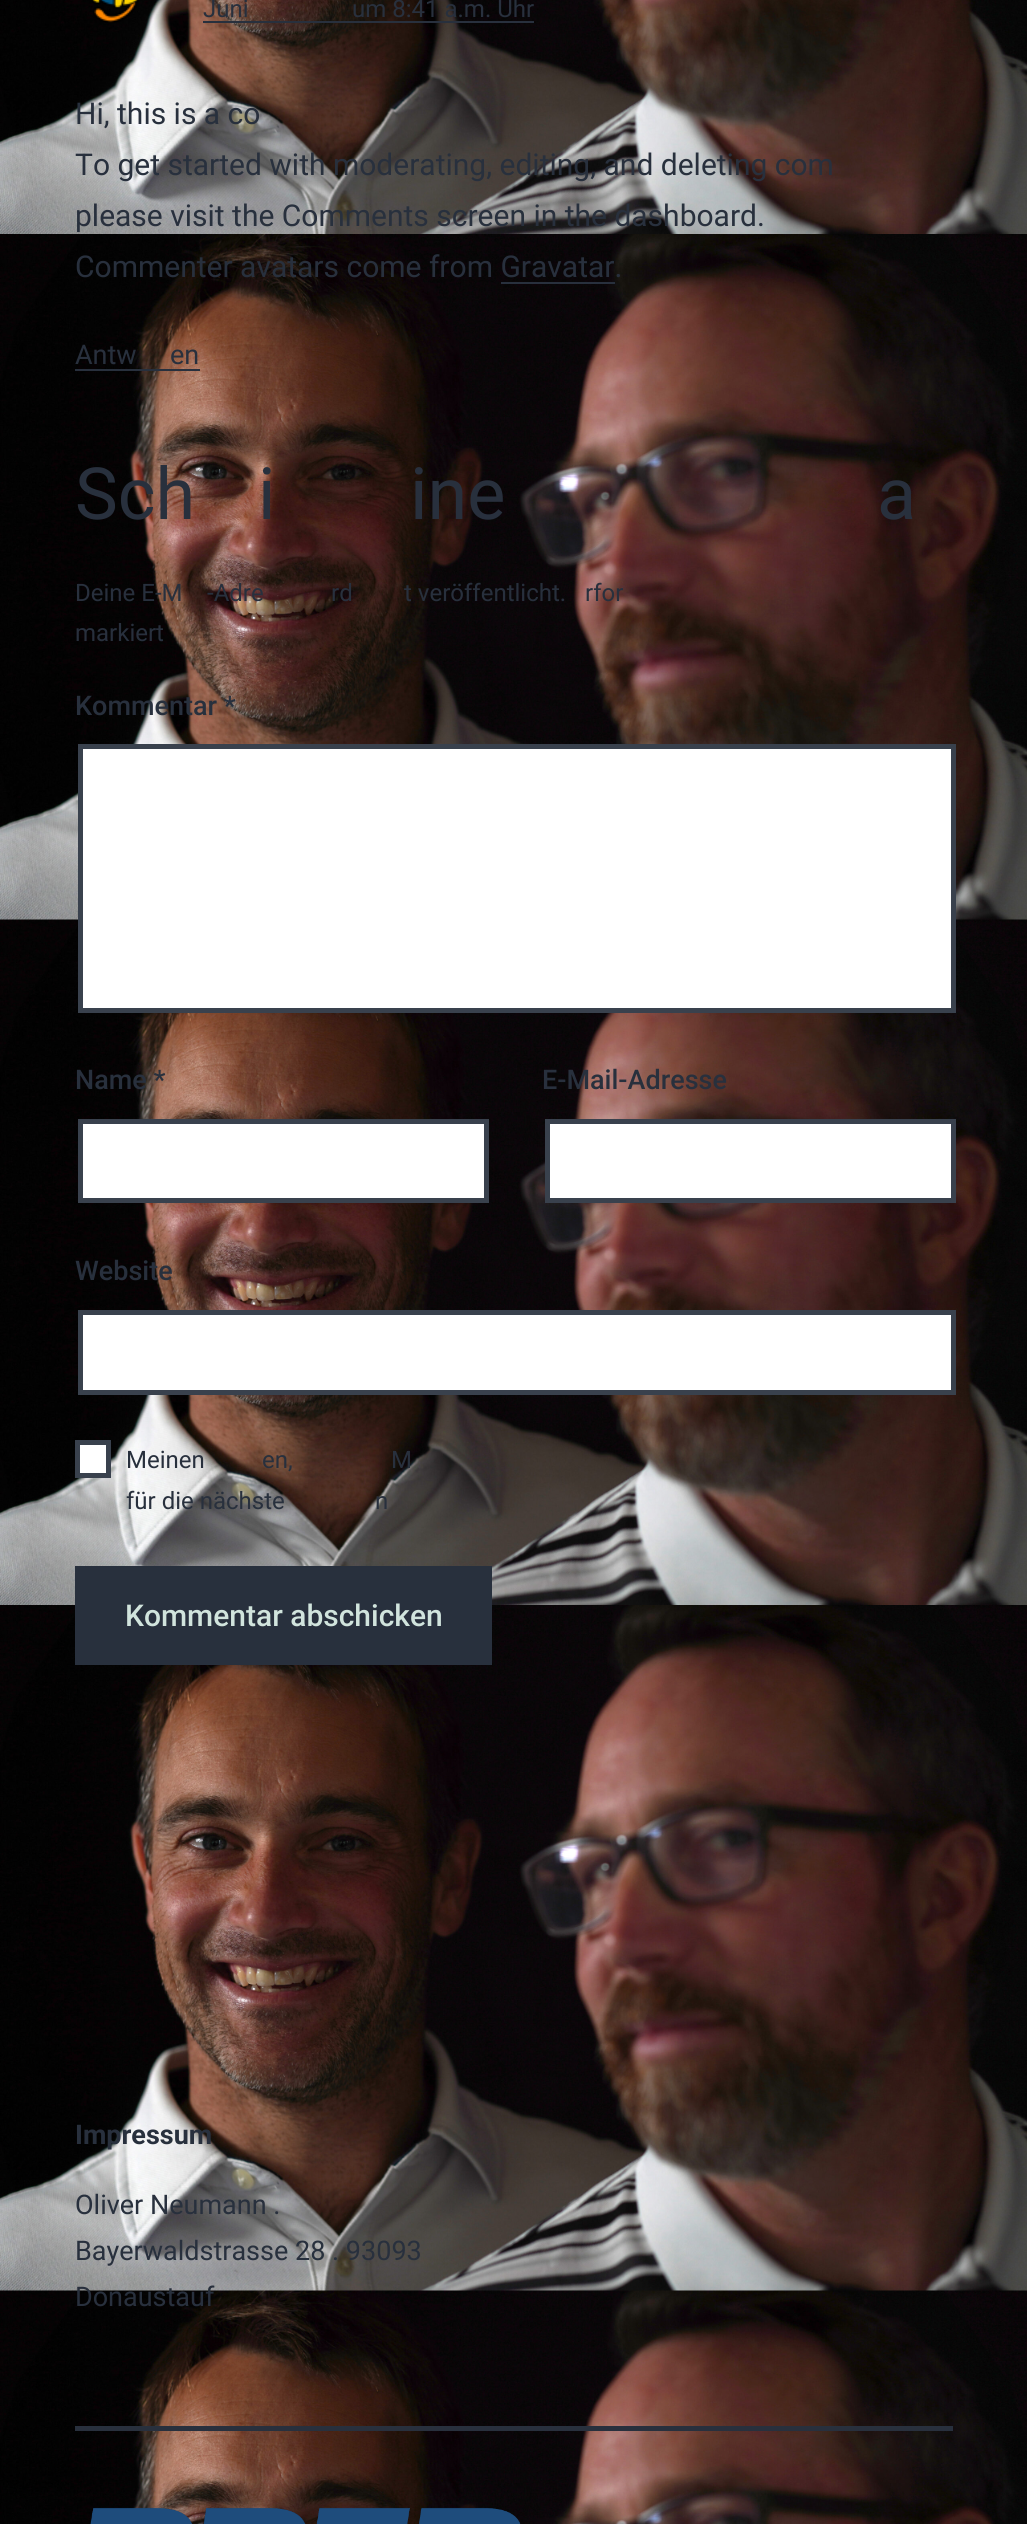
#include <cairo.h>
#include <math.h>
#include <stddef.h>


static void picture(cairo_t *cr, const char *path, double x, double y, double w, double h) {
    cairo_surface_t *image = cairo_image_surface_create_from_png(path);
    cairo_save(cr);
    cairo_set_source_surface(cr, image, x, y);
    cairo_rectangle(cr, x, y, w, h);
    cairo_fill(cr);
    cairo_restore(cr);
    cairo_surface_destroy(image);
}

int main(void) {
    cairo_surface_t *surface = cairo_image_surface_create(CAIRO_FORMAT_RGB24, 1027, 2524);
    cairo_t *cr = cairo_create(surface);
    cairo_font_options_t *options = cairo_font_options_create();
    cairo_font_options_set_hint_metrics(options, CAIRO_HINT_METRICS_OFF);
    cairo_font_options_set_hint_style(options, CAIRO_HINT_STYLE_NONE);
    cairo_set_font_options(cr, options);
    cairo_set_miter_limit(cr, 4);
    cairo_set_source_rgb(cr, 1, 1, 1);
    cairo_paint(cr);
    picture(cr, "img1.png", 0, 0, 1027, 2524);
    picture(cr, "img2.png", 92, 0, 47, 23);
    cairo_select_font_face(cr, "Roboto", CAIRO_FONT_SLANT_NORMAL, CAIRO_FONT_WEIGHT_NORMAL);
    cairo_set_font_size(cr, 24);
    cairo_set_source_rgb(cr, 0.157, 0.188, 0.239);
    cairo_move_to(cr, 203, 17);
    cairo_show_text(cr, "Juni");
    cairo_rectangle(cr, 203, 21, 331, 2);
    cairo_fill(cr);
    cairo_move_to(cr, 352, 17);
    cairo_show_text(cr, "um 8:41 a.m. Uhr");
    cairo_set_font_size(cr, 30);
    cairo_move_to(cr, 75, 124);
    cairo_show_text(cr, "Hi, this is a co");
    cairo_move_to(cr, 75, 175);
    cairo_show_text(cr, "To get started with moderating, editing, and deleting com");
    cairo_move_to(cr, 75, 226);
    cairo_show_text(cr, "please visit the Comments screen in the dashboard.");
    cairo_move_to(cr, 75, 277);
    cairo_show_text(cr, "Commenter avatars come from Gravatar.");
    cairo_rectangle(cr, 501, 282, 114, 2);
    cairo_fill(cr);
    cairo_set_font_size(cr, 27);
    cairo_move_to(cr, 75, 364);
    cairo_show_text(cr, "Antw");
    cairo_move_to(cr, 170, 364);
    cairo_show_text(cr, "en");
    cairo_rectangle(cr, 75, 369, 125, 2);
    cairo_fill(cr);
    cairo_set_font_size(cr, 72);
    cairo_move_to(cr, 75, 519);
    cairo_show_text(cr, "Sch");
    cairo_move_to(cr, 258, 519);
    cairo_show_text(cr, "i");
    cairo_move_to(cr, 410, 519);
    cairo_show_text(cr, "ine");
    cairo_move_to(cr, 877, 519);
    cairo_show_text(cr, "a");
    cairo_set_font_size(cr, 24);
    cairo_move_to(cr, 75, 601);
    cairo_show_text(cr, "Deine E-M");
    cairo_move_to(cr, 207, 601);
    cairo_show_text(cr, "-Adre");
    cairo_move_to(cr, 331, 601);
    cairo_show_text(cr, "rd");
    cairo_move_to(cr, 404, 601);
    cairo_show_text(cr, "t veröffentlicht.");
    cairo_move_to(cr, 585, 601);
    cairo_show_text(cr, "rfor");
    cairo_move_to(cr, 75, 641);
    cairo_show_text(cr, "markiert");
    cairo_select_font_face(cr, "Roboto Medium", CAIRO_FONT_SLANT_NORMAL, CAIRO_FONT_WEIGHT_NORMAL);
    cairo_set_font_size(cr, 27);
    cairo_move_to(cr, 75, 715);
    cairo_show_text(cr, "Kommentar *");
    cairo_set_source_rgb(cr, 1, 1, 1);
    cairo_rectangle(cr, 80.5, 746.5, 873, 264);
    cairo_fill_preserve(cr);
    cairo_set_source_rgb(cr, 0.224, 0.255, 0.302);
    cairo_set_line_width(cr, 5);
    cairo_stroke(cr);
    cairo_set_source_rgb(cr, 0.157, 0.188, 0.239);
    cairo_move_to(cr, 75, 1089);
    cairo_show_text(cr, "Name *");
    cairo_set_source_rgb(cr, 1, 1, 1);
    cairo_rectangle(cr, 80.5, 1121.5, 406, 79);
    cairo_fill_preserve(cr);
    cairo_set_source_rgb(cr, 0.224, 0.255, 0.302);
    cairo_stroke(cr);
    cairo_set_source_rgb(cr, 0.157, 0.188, 0.239);
    cairo_move_to(cr, 542, 1089);
    cairo_show_text(cr, "E-Mail-Adresse");
    cairo_set_source_rgb(cr, 1, 1, 1);
    cairo_rectangle(cr, 547.5, 1121.5, 406, 79);
    cairo_fill_preserve(cr);
    cairo_set_source_rgb(cr, 0.224, 0.255, 0.302);
    cairo_stroke(cr);
    cairo_set_source_rgb(cr, 0.157, 0.188, 0.239);
    cairo_move_to(cr, 75, 1280);
    cairo_show_text(cr, "Website");
    cairo_set_source_rgb(cr, 1, 1, 1);
    cairo_rectangle(cr, 80.5, 1312.5, 873, 80);
    cairo_fill_preserve(cr);
    cairo_set_source_rgb(cr, 0.224, 0.255, 0.302);
    cairo_stroke(cr);
    cairo_set_source_rgb(cr, 1, 1, 1);
    cairo_rectangle(cr, 77.5, 1442.5, 31, 33);
    cairo_fill_preserve(cr);
    cairo_set_source_rgb(cr, 0.224, 0.255, 0.302);
    cairo_stroke(cr);
    cairo_select_font_face(cr, "Roboto", CAIRO_FONT_SLANT_NORMAL, CAIRO_FONT_WEIGHT_NORMAL);
    cairo_set_font_size(cr, 24);
    cairo_set_source_rgb(cr, 0.157, 0.188, 0.239);
    cairo_move_to(cr, 126, 1468);
    cairo_show_text(cr, "Meinen");
    cairo_move_to(cr, 262, 1468);
    cairo_show_text(cr, "en,");
    cairo_move_to(cr, 391, 1468);
    cairo_show_text(cr, "M");
    cairo_move_to(cr, 126, 1509);
    cairo_show_text(cr, "für die nächste");
    cairo_move_to(cr, 375, 1509);
    cairo_show_text(cr, "n");
    cairo_rectangle(cr, 75, 1566, 417, 99);
    cairo_fill(cr);
    cairo_select_font_face(cr, "Roboto Medium", CAIRO_FONT_SLANT_NORMAL, CAIRO_FONT_WEIGHT_NORMAL);
    cairo_set_font_size(cr, 30);
    cairo_set_source_rgb(cr, 0.82, 0.894, 0.867);
    cairo_move_to(cr, 125, 1626);
    cairo_show_text(cr, "Kommentar abschicken");
    cairo_select_font_face(cr, "Roboto", CAIRO_FONT_SLANT_NORMAL, CAIRO_FONT_WEIGHT_BOLD);
    cairo_set_font_size(cr, 27);
    cairo_set_source_rgb(cr, 0.157, 0.188, 0.239);
    cairo_move_to(cr, 75, 2144);
    cairo_show_text(cr, "Impressum");
    cairo_select_font_face(cr, "Roboto", CAIRO_FONT_SLANT_NORMAL, CAIRO_FONT_WEIGHT_NORMAL);
    cairo_move_to(cr, 75, 2214);
    cairo_show_text(cr, "Oliver Neumann .");
    cairo_move_to(cr, 75, 2260);
    cairo_show_text(cr, "Bayerwaldstrasse 28 . 93093");
    cairo_move_to(cr, 75, 2306);
    cairo_show_text(cr, "Donaustauf");
    cairo_rectangle(cr, 75, 2426, 878, 5);
    cairo_fill(cr);
    picture(cr, "img3.png", 90, 2507, 431, 17);
    cairo_surface_write_to_png(surface, "page.png");
    cairo_font_options_destroy(options);
    cairo_destroy(cr);
    cairo_surface_destroy(surface);
    return 0;
}
